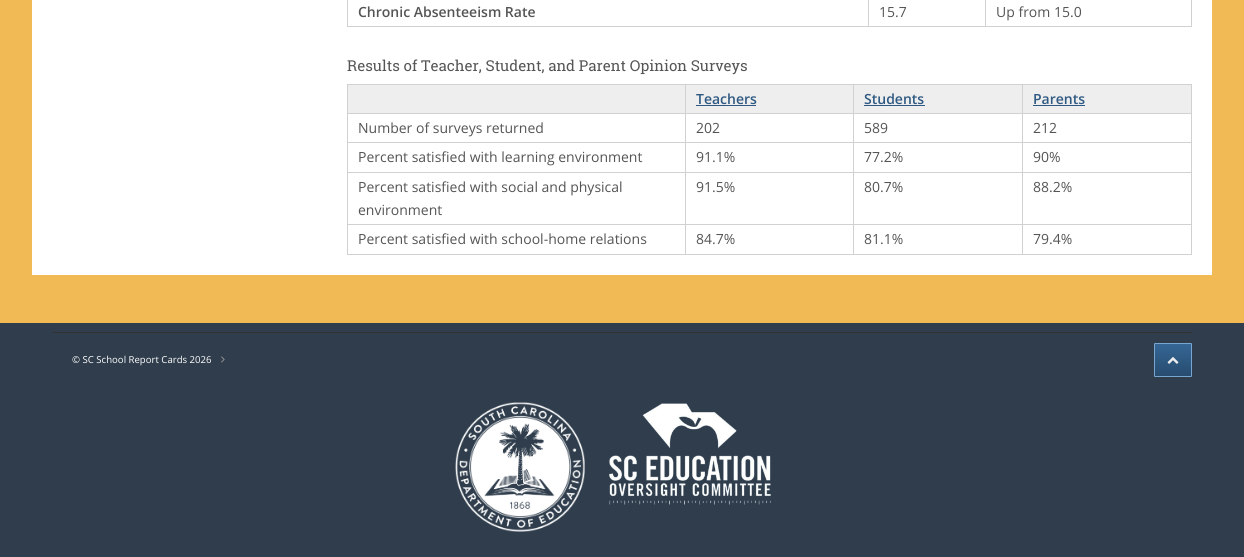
#include <cairo.h>
#include <math.h>
#include <stddef.h>


static void round_rect(cairo_t *cr, double x, double y, double w, double h, double r) {
    cairo_new_sub_path(cr);
    cairo_arc(cr, x + w - r, y + h - r, r, 0, M_PI / 2);
    cairo_arc(cr, x + r, y + h - r, r, M_PI / 2, M_PI);
    cairo_arc(cr, x + r, y + r, r, M_PI, 1.5 * M_PI);
    cairo_arc(cr, x + w - r, y + r, r, 1.5 * M_PI, 2 * M_PI);
    cairo_close_path(cr);
}

static void picture(cairo_t *cr, const char *path, double x, double y, double w, double h) {
    cairo_surface_t *image = cairo_image_surface_create_from_png(path);
    cairo_save(cr);
    cairo_set_source_surface(cr, image, x, y);
    cairo_rectangle(cr, x, y, w, h);
    cairo_fill(cr);
    cairo_restore(cr);
    cairo_surface_destroy(image);
}

int main(void) {
    cairo_surface_t *surface = cairo_image_surface_create(CAIRO_FORMAT_RGB24, 1244, 557);
    cairo_t *cr = cairo_create(surface);
    cairo_font_options_t *options = cairo_font_options_create();
    cairo_font_options_set_hint_metrics(options, CAIRO_HINT_METRICS_OFF);
    cairo_font_options_set_hint_style(options, CAIRO_HINT_STYLE_NONE);
    cairo_set_font_options(cr, options);
    cairo_set_miter_limit(cr, 4);
    cairo_pattern_t *gradient;
    cairo_set_source_rgb(cr, 0.945, 0.729, 0.333);
    cairo_paint(cr);
    cairo_set_source_rgb(cr, 1, 1, 1);
    cairo_rectangle(cr, 32, 0, 1180, 275);
    cairo_fill(cr);
    cairo_set_source_rgb(cr, 0.82, 0.82, 0.82);
    cairo_rectangle(cr, 1191, 0, 1, 27);
    cairo_fill(cr);
    cairo_rectangle(cr, 347, 26, 845, 1);
    cairo_fill(cr);
    cairo_rectangle(cr, 347, 0, 1, 27);
    cairo_fill(cr);
    cairo_select_font_face(cr, "Open Sans SemiBold", CAIRO_FONT_SLANT_NORMAL, CAIRO_FONT_WEIGHT_NORMAL);
    cairo_set_font_size(cr, 14);
    cairo_set_source_rgb(cr, 0.333, 0.333, 0.333);
    cairo_move_to(cr, 358, 17);
    cairo_show_text(cr, "Chronic Absenteeism Rate");
    cairo_set_source_rgb(cr, 0.82, 0.82, 0.82);
    cairo_rectangle(cr, 868, 0, 1, 27);
    cairo_fill(cr);
    cairo_select_font_face(cr, "Open Sans", CAIRO_FONT_SLANT_NORMAL, CAIRO_FONT_WEIGHT_NORMAL);
    cairo_set_source_rgb(cr, 0.333, 0.333, 0.333);
    cairo_move_to(cr, 879, 17);
    cairo_show_text(cr, "15.7");
    cairo_set_source_rgb(cr, 0.82, 0.82, 0.82);
    cairo_rectangle(cr, 985, 0, 1, 27);
    cairo_fill(cr);
    cairo_set_source_rgb(cr, 0.333, 0.333, 0.333);
    cairo_move_to(cr, 996, 17);
    cairo_show_text(cr, "Up from 15.0");
    cairo_select_font_face(cr, "Roboto Slab", CAIRO_FONT_SLANT_NORMAL, CAIRO_FONT_WEIGHT_NORMAL);
    cairo_set_font_size(cr, 15);
    cairo_move_to(cr, 347, 71);
    cairo_show_text(cr, "Results of Teacher, Student, and Parent Opinion Surveys");
    cairo_set_source_rgb(cr, 0.82, 0.82, 0.82);
    cairo_rectangle(cr, 347, 84, 845, 1);
    cairo_fill(cr);
    cairo_rectangle(cr, 1191, 84, 1, 171);
    cairo_fill(cr);
    cairo_rectangle(cr, 347, 254, 845, 1);
    cairo_fill(cr);
    cairo_rectangle(cr, 347, 84, 1, 171);
    cairo_fill(cr);
    cairo_set_source_rgb(cr, 0.933, 0.933, 0.933);
    cairo_rectangle(cr, 348, 85, 337, 28);
    cairo_fill(cr);
    cairo_rectangle(cr, 686, 85, 167, 28);
    cairo_fill(cr);
    cairo_set_source_rgb(cr, 0.82, 0.82, 0.82);
    cairo_rectangle(cr, 1022, 113, 170, 1);
    cairo_fill(cr);
    cairo_rectangle(cr, 1022, 142, 170, 1);
    cairo_fill(cr);
    cairo_rectangle(cr, 1022, 172, 170, 1);
    cairo_fill(cr);
    cairo_rectangle(cr, 1022, 224, 170, 1);
    cairo_fill(cr);
    cairo_rectangle(cr, 1022, 224, 1, 31);
    cairo_fill(cr);
    cairo_rectangle(cr, 853, 224, 170, 1);
    cairo_fill(cr);
    cairo_rectangle(cr, 1022, 172, 1, 53);
    cairo_fill(cr);
    cairo_rectangle(cr, 853, 172, 170, 1);
    cairo_fill(cr);
    cairo_rectangle(cr, 1022, 142, 1, 31);
    cairo_fill(cr);
    cairo_rectangle(cr, 853, 142, 170, 1);
    cairo_fill(cr);
    cairo_rectangle(cr, 1022, 113, 1, 30);
    cairo_fill(cr);
    cairo_rectangle(cr, 853, 113, 170, 1);
    cairo_fill(cr);
    cairo_rectangle(cr, 853, 224, 1, 31);
    cairo_fill(cr);
    cairo_rectangle(cr, 685, 224, 169, 1);
    cairo_fill(cr);
    cairo_rectangle(cr, 853, 172, 1, 53);
    cairo_fill(cr);
    cairo_rectangle(cr, 685, 172, 169, 1);
    cairo_fill(cr);
    cairo_rectangle(cr, 853, 142, 1, 31);
    cairo_fill(cr);
    cairo_rectangle(cr, 685, 142, 169, 1);
    cairo_fill(cr);
    cairo_rectangle(cr, 853, 113, 1, 30);
    cairo_fill(cr);
    cairo_rectangle(cr, 685, 113, 169, 1);
    cairo_fill(cr);
    cairo_rectangle(cr, 685, 224, 1, 31);
    cairo_fill(cr);
    cairo_rectangle(cr, 347, 224, 339, 1);
    cairo_fill(cr);
    cairo_rectangle(cr, 685, 172, 1, 53);
    cairo_fill(cr);
    cairo_rectangle(cr, 347, 172, 339, 1);
    cairo_fill(cr);
    cairo_rectangle(cr, 685, 142, 1, 31);
    cairo_fill(cr);
    cairo_rectangle(cr, 347, 142, 339, 1);
    cairo_fill(cr);
    cairo_rectangle(cr, 685, 113, 1, 30);
    cairo_fill(cr);
    cairo_rectangle(cr, 347, 113, 339, 1);
    cairo_fill(cr);
    cairo_rectangle(cr, 685, 84, 1, 30);
    cairo_fill(cr);
    cairo_select_font_face(cr, "Open Sans SemiBold", CAIRO_FONT_SLANT_NORMAL, CAIRO_FONT_WEIGHT_NORMAL);
    cairo_set_font_size(cr, 14);
    cairo_set_source_rgb(cr, 0.18, 0.349, 0.51);
    cairo_move_to(cr, 696, 104);
    cairo_show_text(cr, "Teachers");
    cairo_rectangle(cr, 696, 105, 60, 1);
    cairo_fill(cr);
    cairo_set_source_rgb(cr, 0.933, 0.933, 0.933);
    cairo_rectangle(cr, 854, 85, 168, 28);
    cairo_fill(cr);
    cairo_set_source_rgb(cr, 0.82, 0.82, 0.82);
    cairo_rectangle(cr, 853, 84, 1, 30);
    cairo_fill(cr);
    cairo_set_source_rgb(cr, 0.18, 0.349, 0.51);
    cairo_move_to(cr, 864, 104);
    cairo_show_text(cr, "Students");
    cairo_rectangle(cr, 864, 105, 61, 1);
    cairo_fill(cr);
    cairo_set_source_rgb(cr, 0.933, 0.933, 0.933);
    cairo_rectangle(cr, 1023, 85, 168, 28);
    cairo_fill(cr);
    cairo_set_source_rgb(cr, 0.82, 0.82, 0.82);
    cairo_rectangle(cr, 1022, 84, 1, 30);
    cairo_fill(cr);
    cairo_set_source_rgb(cr, 0.18, 0.349, 0.51);
    cairo_move_to(cr, 1033, 104);
    cairo_show_text(cr, "Parents");
    cairo_rectangle(cr, 1033, 105, 52, 1);
    cairo_fill(cr);
    cairo_select_font_face(cr, "Open Sans", CAIRO_FONT_SLANT_NORMAL, CAIRO_FONT_WEIGHT_NORMAL);
    cairo_set_source_rgb(cr, 0.333, 0.333, 0.333);
    cairo_move_to(cr, 358, 133);
    cairo_show_text(cr, "Number of surveys returned");
    cairo_move_to(cr, 696, 133);
    cairo_show_text(cr, "202");
    cairo_move_to(cr, 864, 133);
    cairo_show_text(cr, "589");
    cairo_move_to(cr, 1033, 133);
    cairo_show_text(cr, "212");
    cairo_move_to(cr, 358, 162);
    cairo_show_text(cr, "Percent satisfied with learning environment");
    cairo_move_to(cr, 696, 162);
    cairo_show_text(cr, "91.1%");
    cairo_move_to(cr, 864, 162);
    cairo_show_text(cr, "77.2%");
    cairo_move_to(cr, 1033, 162);
    cairo_show_text(cr, "90%");
    cairo_move_to(cr, 358, 192);
    cairo_show_text(cr, "Percent satisfied with social and physical");
    cairo_move_to(cr, 358, 215);
    cairo_show_text(cr, "environment");
    cairo_move_to(cr, 696, 192);
    cairo_show_text(cr, "91.5%");
    cairo_move_to(cr, 864, 192);
    cairo_show_text(cr, "80.7%");
    cairo_move_to(cr, 1033, 192);
    cairo_show_text(cr, "88.2%");
    cairo_move_to(cr, 358, 244);
    cairo_show_text(cr, "Percent satisfied with school-home relations");
    cairo_move_to(cr, 696, 244);
    cairo_show_text(cr, "84.7%");
    cairo_move_to(cr, 864, 244);
    cairo_show_text(cr, "81.1%");
    cairo_move_to(cr, 1033, 244);
    cairo_show_text(cr, "79.4%");
    cairo_set_source_rgb(cr, 0.184, 0.239, 0.298);
    cairo_rectangle(cr, 0, 323, 1244, 234);
    cairo_fill(cr);
    cairo_set_source_rgb(cr, 0.2, 0.2, 0.2);
    cairo_rectangle(cr, 52, 332, 1140, 1);
    cairo_fill(cr);
    cairo_set_font_size(cr, 9.6);
    cairo_set_source_rgb(cr, 1, 1, 1);
    cairo_move_to(cr, 72, 363);
    cairo_show_text(cr, "© SC School Report Cards 2026");
    picture(cr, "img1.png", 221, 356, 4, 7);
    gradient = cairo_pattern_create_linear(1173, 344, 1173, 376);
    cairo_pattern_add_color_stop_rgba(gradient, 0, 0.208, 0.4, 0.584, 1);
    cairo_pattern_add_color_stop_rgba(gradient, 1, 0.153, 0.298, 0.435, 1);
    cairo_set_source(cr, gradient);
    cairo_pattern_destroy(gradient);
    cairo_rectangle(cr, 1155, 344, 36, 32);
    cairo_fill(cr);
    round_rect(cr, 1154.5, 343.5, 37, 33, 0.5);
    cairo_set_source_rgb(cr, 0.475, 0.651, 0.816);
    cairo_set_line_width(cr, 1);
    cairo_stroke(cr);
    picture(cr, "img2.png", 1167, 357, 12, 7);
    picture(cr, "img3.png", 455, 402, 130, 130);
    picture(cr, "img4.png", 609, 403, 162, 102);
    cairo_surface_write_to_png(surface, "page.png");
    cairo_font_options_destroy(options);
    cairo_destroy(cr);
    cairo_surface_destroy(surface);
    return 0;
}
